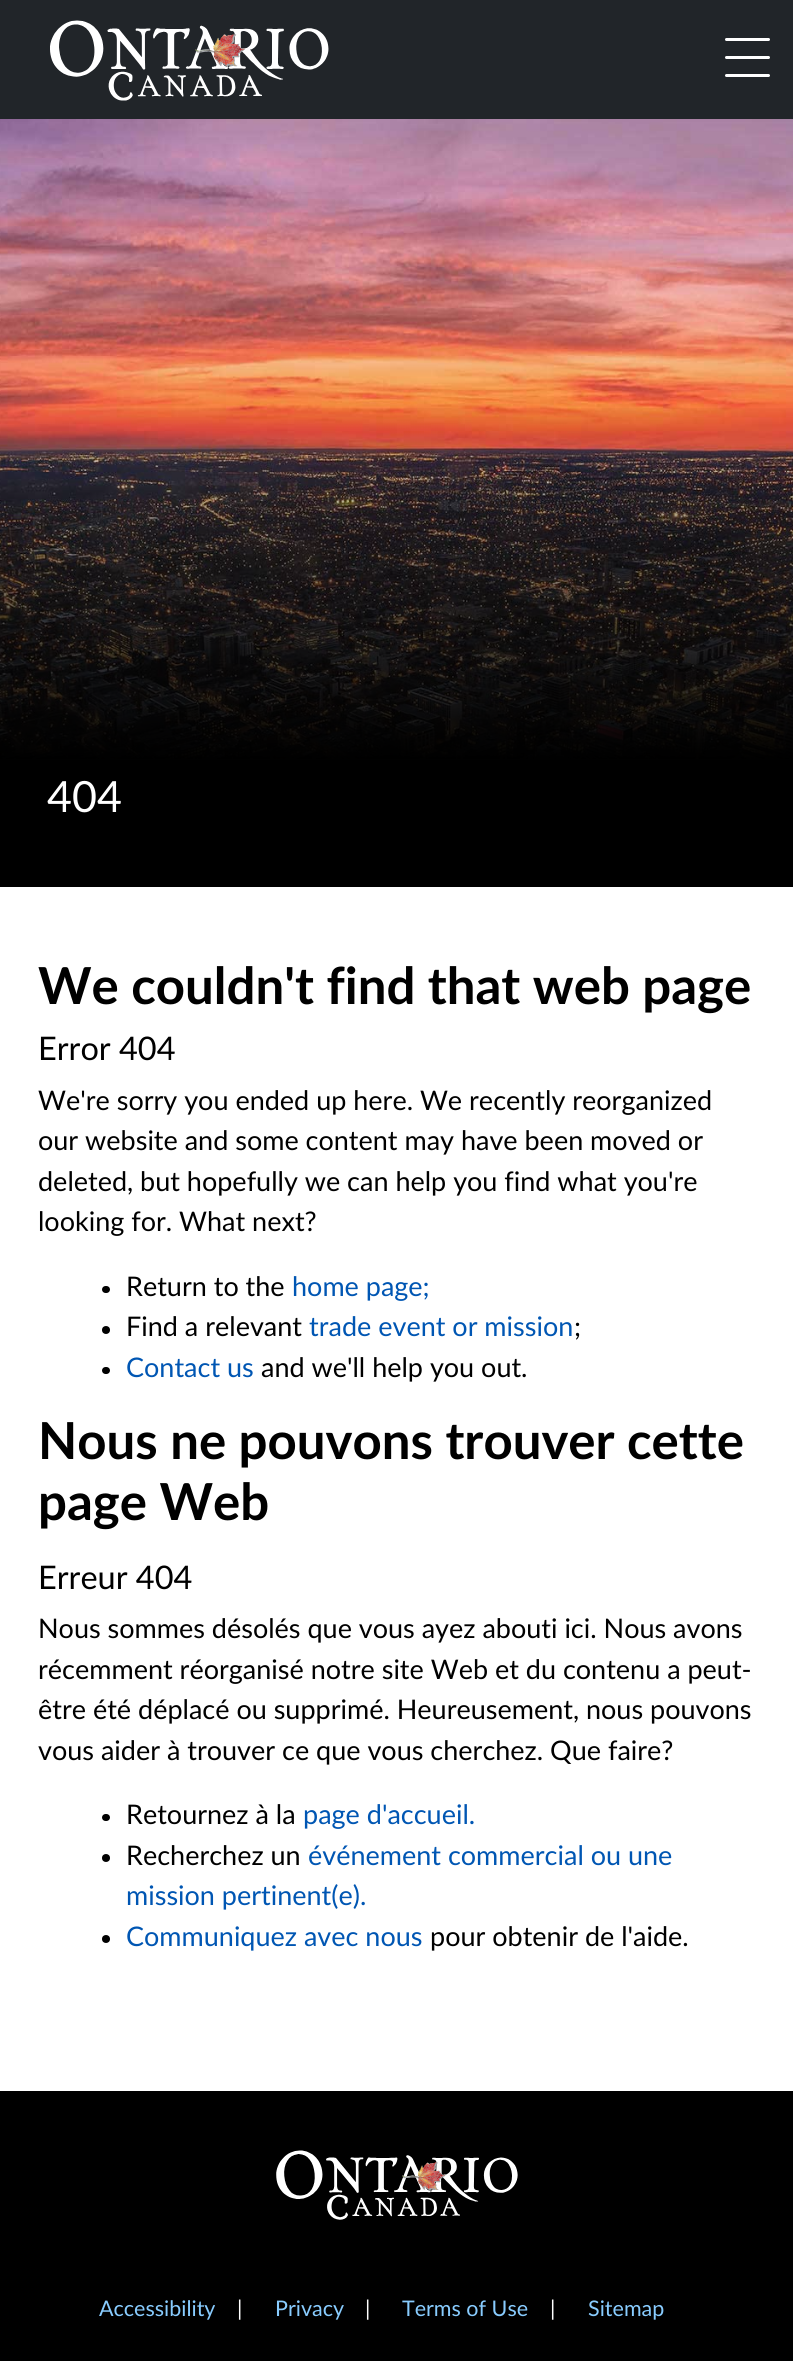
#include <cairo.h>
#include <math.h>
#include <stddef.h>


static void round_rect(cairo_t *cr, double x, double y, double w, double h, double r) {
    cairo_new_sub_path(cr);
    cairo_arc(cr, x + w - r, y + h - r, r, 0, M_PI / 2);
    cairo_arc(cr, x + r, y + h - r, r, M_PI / 2, M_PI);
    cairo_arc(cr, x + r, y + r, r, M_PI, 1.5 * M_PI);
    cairo_arc(cr, x + w - r, y + r, r, 1.5 * M_PI, 2 * M_PI);
    cairo_close_path(cr);
}

static void picture(cairo_t *cr, const char *path, double x, double y, double w, double h) {
    cairo_surface_t *image = cairo_image_surface_create_from_png(path);
    cairo_save(cr);
    cairo_set_source_surface(cr, image, x, y);
    cairo_rectangle(cr, x, y, w, h);
    cairo_fill(cr);
    cairo_restore(cr);
    cairo_surface_destroy(image);
}

int main(void) {
    cairo_surface_t *surface = cairo_image_surface_create(CAIRO_FORMAT_RGB24, 793, 2361);
    cairo_t *cr = cairo_create(surface);
    cairo_font_options_t *options = cairo_font_options_create();
    cairo_font_options_set_hint_metrics(options, CAIRO_HINT_METRICS_OFF);
    cairo_font_options_set_hint_style(options, CAIRO_HINT_STYLE_NONE);
    cairo_set_font_options(cr, options);
    cairo_set_miter_limit(cr, 4);
    cairo_pattern_t *gradient;
    cairo_set_source_rgb(cr, 1, 1, 1);
    cairo_paint(cr);
    cairo_set_source_rgb(cr, 0.129, 0.145, 0.161);
    cairo_rectangle(cr, 0, 0, 793, 119);
    cairo_fill(cr);
    picture(cr, "img1.png", 50, 20, 279, 81);
    cairo_set_source_rgb(cr, 1, 1, 1);
    round_rect(cr, 725, 38, 45, 3, 1.5);
    cairo_fill(cr);
    round_rect(cr, 725, 56, 45, 3, 1.5);
    cairo_fill(cr);
    round_rect(cr, 725, 74, 45, 3, 1.5);
    cairo_fill(cr);
    picture(cr, "img2.png", 0, 119, 793, 640);
    gradient = cairo_pattern_create_linear(397, 887, 397, 47);
    cairo_pattern_add_color_stop_rgba(gradient, 0.15, 0, 0, 0, 1);
    cairo_pattern_add_color_stop_rgba(gradient, 0.58, 0, 0, 0, 0);
    cairo_set_source(cr, gradient);
    cairo_pattern_destroy(gradient);
    cairo_rectangle(cr, 0, 408, 793, 479);
    cairo_fill(cr);
    cairo_select_font_face(cr, "Lato", CAIRO_FONT_SLANT_NORMAL, CAIRO_FONT_WEIGHT_NORMAL);
    cairo_set_font_size(cr, 43);
    cairo_set_source_rgb(cr, 1, 1, 1);
    cairo_move_to(cr, 47, 812);
    cairo_show_text(cr, "404");
    cairo_select_font_face(cr, "Lato", CAIRO_FONT_SLANT_NORMAL, CAIRO_FONT_WEIGHT_BOLD);
    cairo_set_font_size(cr, 51);
    cairo_set_source_rgb(cr, 0, 0, 0);
    cairo_move_to(cr, 38, 1004);
    cairo_show_text(cr, "We couldn't find that web page");
    cairo_select_font_face(cr, "Lato", CAIRO_FONT_SLANT_NORMAL, CAIRO_FONT_WEIGHT_NORMAL);
    cairo_set_font_size(cr, 32.5);
    cairo_move_to(cr, 38, 1060);
    cairo_show_text(cr, "Error 404");
    cairo_set_font_size(cr, 27);
    cairo_move_to(cr, 38, 1110);
    cairo_show_text(cr, "We're sorry you ended up here. We recently reorganized");
    cairo_move_to(cr, 38, 1150);
    cairo_show_text(cr, "our website and some content may have been moved or");
    cairo_move_to(cr, 38, 1191);
    cairo_show_text(cr, "deleted, but hopefully we can help you find what you're");
    cairo_move_to(cr, 38, 1231);
    cairo_show_text(cr, "looking for. What next?");
    round_rect(cr, 102, 1286, 8, 7, 3.5);
    cairo_fill(cr);
    cairo_move_to(cr, 126, 1296);
    cairo_show_text(cr, "Return to the");
    cairo_set_source_rgb(cr, 0, 0.337, 0.702);
    cairo_move_to(cr, 292, 1296);
    cairo_show_text(cr, "home page;");
    cairo_set_source_rgb(cr, 0, 0, 0);
    cairo_new_path(cr);
    cairo_arc(cr, 106, 1330, 4, 0, 2 * M_PI);
    cairo_fill(cr);
    cairo_move_to(cr, 126, 1336);
    cairo_show_text(cr, "Find a relevant");
    cairo_set_source_rgb(cr, 0, 0.337, 0.702);
    cairo_move_to(cr, 309, 1336);
    cairo_show_text(cr, "trade event or mission");
    cairo_set_source_rgb(cr, 0, 0, 0);
    cairo_move_to(cr, 574, 1336);
    cairo_show_text(cr, ";");
    round_rect(cr, 102, 1367, 8, 7, 3.5);
    cairo_fill(cr);
    cairo_set_source_rgb(cr, 0, 0.337, 0.702);
    cairo_move_to(cr, 126, 1377);
    cairo_show_text(cr, "Contact us");
    cairo_set_source_rgb(cr, 0, 0, 0);
    cairo_move_to(cr, 261, 1377);
    cairo_show_text(cr, "and we'll help you out.");
    cairo_select_font_face(cr, "Lato", CAIRO_FONT_SLANT_NORMAL, CAIRO_FONT_WEIGHT_BOLD);
    cairo_set_font_size(cr, 51);
    cairo_move_to(cr, 38, 1459);
    cairo_show_text(cr, "Nous ne pouvons trouver cette");
    cairo_move_to(cr, 38, 1520);
    cairo_show_text(cr, "page Web");
    cairo_select_font_face(cr, "Lato", CAIRO_FONT_SLANT_NORMAL, CAIRO_FONT_WEIGHT_NORMAL);
    cairo_set_font_size(cr, 32.5);
    cairo_move_to(cr, 38, 1589);
    cairo_show_text(cr, "Erreur 404");
    cairo_set_font_size(cr, 27);
    cairo_move_to(cr, 38, 1638);
    cairo_show_text(cr, "Nous sommes désolés que vous ayez abouti ici. Nous avons");
    cairo_move_to(cr, 38, 1679);
    cairo_show_text(cr, "récemment réorganisé notre site Web et du contenu a peut-");
    cairo_move_to(cr, 38, 1719);
    cairo_show_text(cr, "être été déplacé ou supprimé. Heureusement, nous pouvons");
    cairo_move_to(cr, 38, 1760);
    cairo_show_text(cr, "vous aider à trouver ce que vous cherchez. Que faire?");
    round_rect(cr, 102, 1814, 8, 7, 3.5);
    cairo_fill(cr);
    cairo_move_to(cr, 126, 1824);
    cairo_show_text(cr, "Retournez à la");
    cairo_set_source_rgb(cr, 0, 0.337, 0.702);
    cairo_move_to(cr, 303, 1824);
    cairo_show_text(cr, "page d'accueil.");
    cairo_set_source_rgb(cr, 0, 0, 0);
    cairo_new_path(cr);
    cairo_arc(cr, 106, 1858, 4, 0, 2 * M_PI);
    cairo_fill(cr);
    cairo_move_to(cr, 126, 1865);
    cairo_show_text(cr, "Recherchez un");
    cairo_set_source_rgb(cr, 0, 0.337, 0.702);
    cairo_move_to(cr, 308, 1865);
    cairo_show_text(cr, "événement commercial ou une");
    cairo_move_to(cr, 126, 1905);
    cairo_show_text(cr, "mission pertinent(e).");
    cairo_set_source_rgb(cr, 0, 0, 0);
    cairo_new_path(cr);
    cairo_arc(cr, 106, 1939, 4, 0, 2 * M_PI);
    cairo_fill(cr);
    cairo_set_source_rgb(cr, 0, 0.337, 0.702);
    cairo_move_to(cr, 126, 1946);
    cairo_show_text(cr, "Communiquez avec nous");
    cairo_set_source_rgb(cr, 0, 0, 0);
    cairo_move_to(cr, 430, 1946);
    cairo_show_text(cr, "pour obtenir de l'aide.");
    cairo_rectangle(cr, 0, 2091, 793, 270);
    cairo_fill(cr);
    picture(cr, "img3.png", 276, 2150, 242, 70);
    cairo_set_font_size(cr, 21.5);
    cairo_set_source_rgb(cr, 0.533, 0.8, 1);
    cairo_move_to(cr, 99, 2316);
    cairo_show_text(cr, "Accessibility");
    cairo_set_source_rgb(cr, 1, 1, 1);
    cairo_move_to(cr, 237, 2316);
    cairo_show_text(cr, "|");
    cairo_set_source_rgb(cr, 0.533, 0.8, 1);
    cairo_move_to(cr, 275, 2316);
    cairo_show_text(cr, "Privacy");
    cairo_set_source_rgb(cr, 1, 1, 1);
    cairo_move_to(cr, 365, 2316);
    cairo_show_text(cr, "|");
    cairo_set_source_rgb(cr, 0.533, 0.8, 1);
    cairo_move_to(cr, 402, 2316);
    cairo_show_text(cr, "Terms of Use");
    cairo_set_source_rgb(cr, 1, 1, 1);
    cairo_move_to(cr, 550, 2316);
    cairo_show_text(cr, "|");
    cairo_set_source_rgb(cr, 0.533, 0.8, 1);
    cairo_move_to(cr, 588, 2316);
    cairo_show_text(cr, "Sitemap");
    cairo_surface_write_to_png(surface, "page.png");
    cairo_font_options_destroy(options);
    cairo_destroy(cr);
    cairo_surface_destroy(surface);
    return 0;
}
